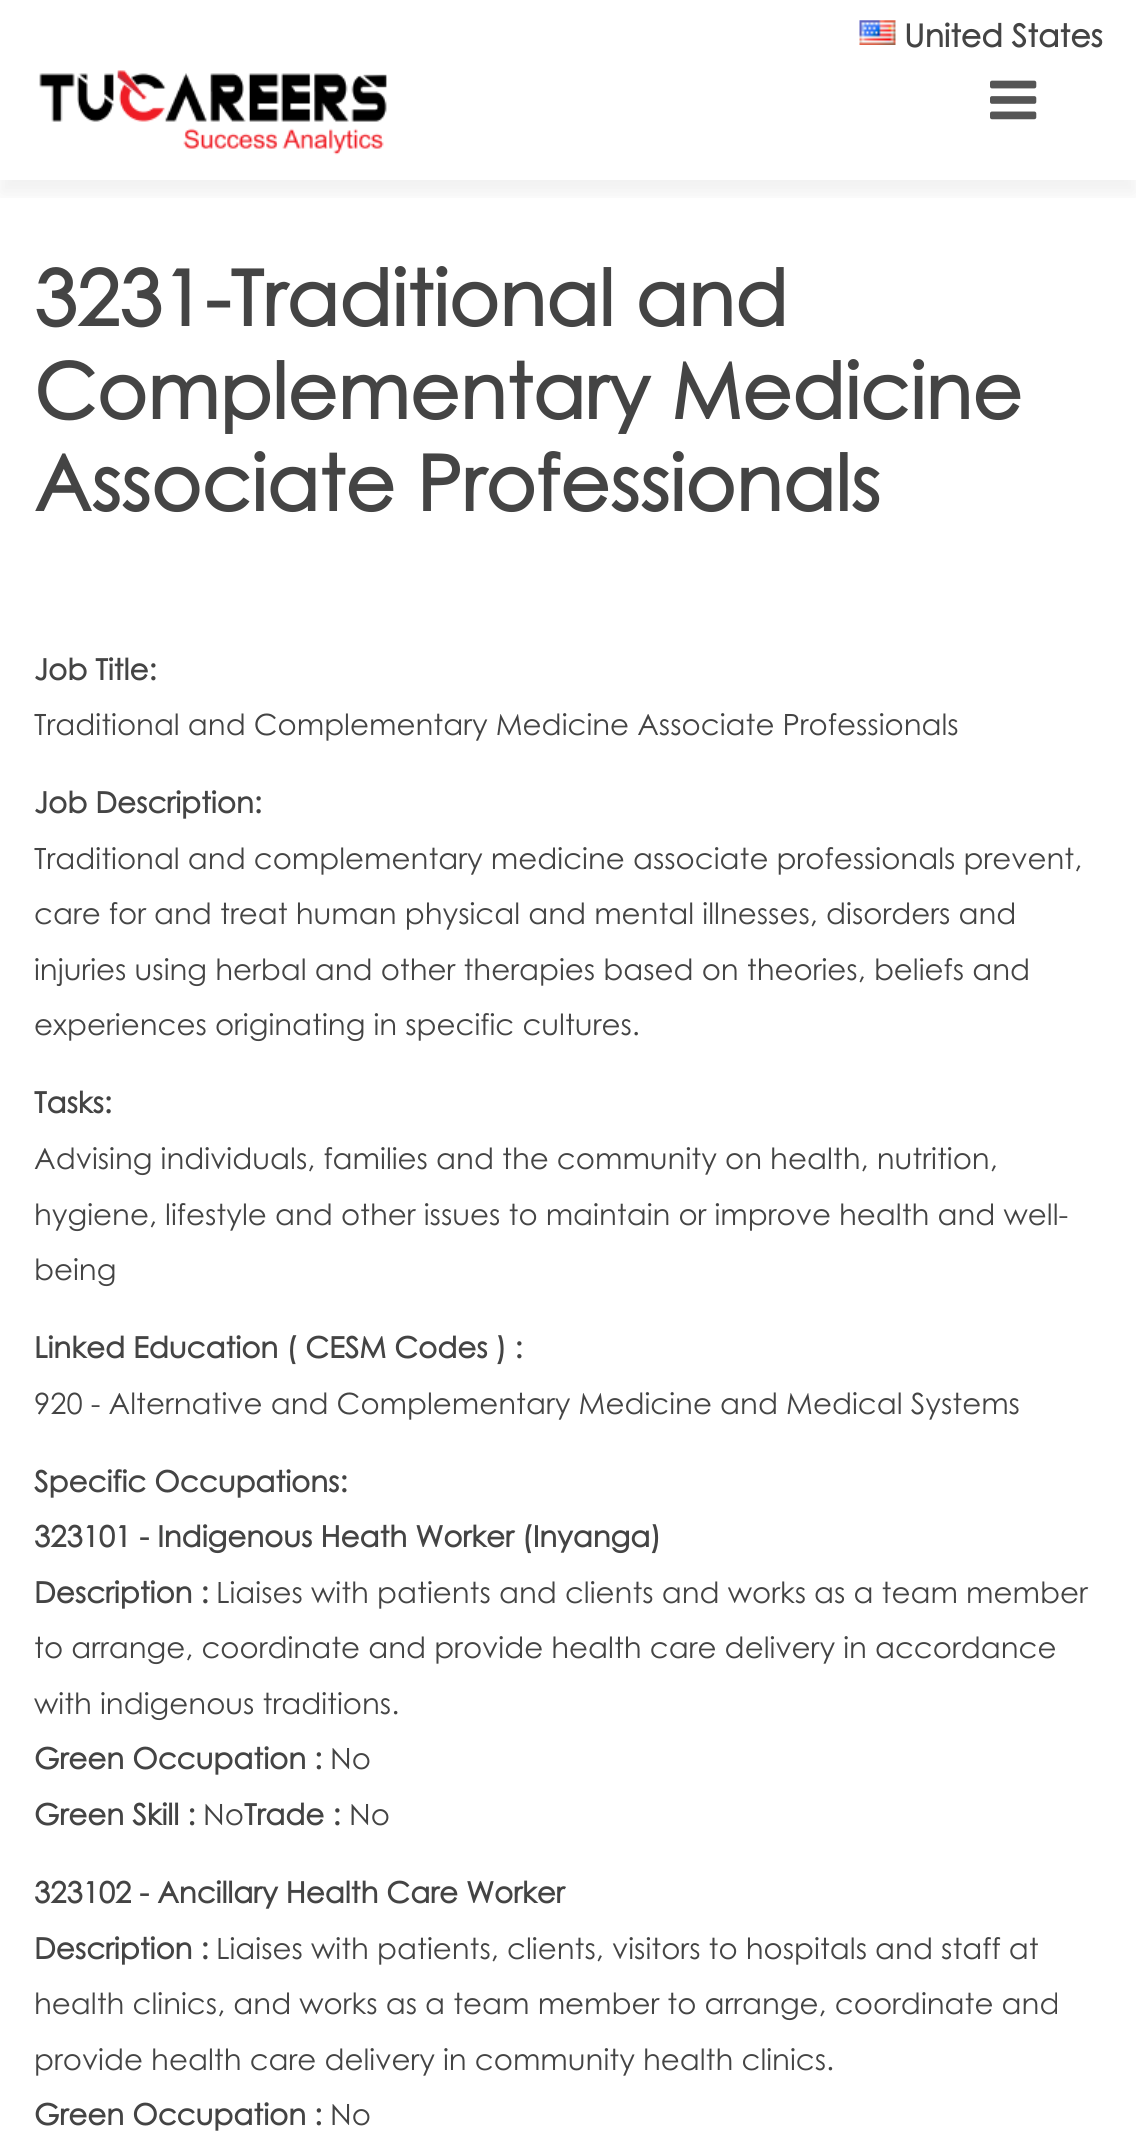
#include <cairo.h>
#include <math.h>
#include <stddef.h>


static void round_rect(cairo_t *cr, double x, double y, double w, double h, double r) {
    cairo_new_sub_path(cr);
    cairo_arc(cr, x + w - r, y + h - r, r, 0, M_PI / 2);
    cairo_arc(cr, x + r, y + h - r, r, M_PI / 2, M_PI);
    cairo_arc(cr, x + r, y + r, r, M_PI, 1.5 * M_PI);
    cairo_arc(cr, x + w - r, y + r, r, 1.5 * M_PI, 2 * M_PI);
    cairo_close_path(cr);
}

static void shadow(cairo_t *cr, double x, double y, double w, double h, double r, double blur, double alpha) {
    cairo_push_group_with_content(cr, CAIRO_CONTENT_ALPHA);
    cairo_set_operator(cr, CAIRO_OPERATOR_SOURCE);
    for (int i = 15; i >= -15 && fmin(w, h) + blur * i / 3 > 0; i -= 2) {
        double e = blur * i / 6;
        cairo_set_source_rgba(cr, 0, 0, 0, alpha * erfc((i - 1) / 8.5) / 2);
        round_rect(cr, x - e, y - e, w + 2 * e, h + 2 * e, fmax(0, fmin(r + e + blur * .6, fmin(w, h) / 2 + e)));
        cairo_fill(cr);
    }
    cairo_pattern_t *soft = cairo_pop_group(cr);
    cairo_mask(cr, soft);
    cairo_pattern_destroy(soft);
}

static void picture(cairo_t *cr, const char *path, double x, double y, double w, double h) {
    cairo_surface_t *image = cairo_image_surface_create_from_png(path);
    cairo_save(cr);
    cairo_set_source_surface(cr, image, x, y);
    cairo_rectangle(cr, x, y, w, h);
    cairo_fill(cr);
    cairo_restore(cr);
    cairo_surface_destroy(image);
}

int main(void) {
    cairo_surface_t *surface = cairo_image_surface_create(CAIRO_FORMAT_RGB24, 1136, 2140);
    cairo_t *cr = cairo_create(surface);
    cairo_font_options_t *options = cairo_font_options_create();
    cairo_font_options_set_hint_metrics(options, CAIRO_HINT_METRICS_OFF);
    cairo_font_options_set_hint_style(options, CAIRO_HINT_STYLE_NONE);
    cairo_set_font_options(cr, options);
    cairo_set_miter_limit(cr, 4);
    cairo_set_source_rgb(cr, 1, 1, 1);
    cairo_paint(cr);
    picture(cr, "img1.png", 859, 20, 37, 25);
    cairo_select_font_face(cr, "Century Gothic", CAIRO_FONT_SLANT_NORMAL, CAIRO_FONT_WEIGHT_BOLD);
    cairo_set_font_size(cr, 31.5);
    cairo_set_source_rgb(cr, 0.267, 0.267, 0.267);
    cairo_move_to(cr, 904, 47);
    cairo_show_text(cr, "United States");
    cairo_save(cr);
    cairo_rectangle(cr, 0, 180, 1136, 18);
    cairo_clip(cr);
    cairo_set_source_rgb(cr, 0, 0, 0);
    shadow(cr, 0, 81, 1136, 113, 0, 10, 0.06);
    cairo_restore(cr);
    picture(cr, "img2.png", 39, 70, 348, 85);
    cairo_set_font_size(cr, 77);
    cairo_move_to(cr, 34, 326);
    cairo_show_text(cr, "3231-Traditional and");
    cairo_move_to(cr, 34, 419);
    cairo_show_text(cr, "Complementary Medicine");
    cairo_move_to(cr, 34, 511);
    cairo_show_text(cr, "Associate Professionals");
    cairo_set_font_size(cr, 29.25);
    cairo_move_to(cr, 34, 680);
    cairo_show_text(cr, "Job Title:");
    cairo_select_font_face(cr, "Century Gothic", CAIRO_FONT_SLANT_NORMAL, CAIRO_FONT_WEIGHT_NORMAL);
    cairo_move_to(cr, 34, 735);
    cairo_show_text(cr, "Traditional and Complementary Medicine Associate Professionals");
    cairo_select_font_face(cr, "Century Gothic", CAIRO_FONT_SLANT_NORMAL, CAIRO_FONT_WEIGHT_BOLD);
    cairo_move_to(cr, 34, 813);
    cairo_show_text(cr, "Job Description:");
    cairo_select_font_face(cr, "Century Gothic", CAIRO_FONT_SLANT_NORMAL, CAIRO_FONT_WEIGHT_NORMAL);
    cairo_move_to(cr, 34, 869);
    cairo_show_text(cr, "Traditional and complementary medicine associate professionals prevent,");
    cairo_move_to(cr, 34, 924);
    cairo_show_text(cr, "care for and treat human physical and mental illnesses, disorders and");
    cairo_move_to(cr, 34, 980);
    cairo_show_text(cr, "injuries using herbal and other therapies based on theories, beliefs and");
    cairo_move_to(cr, 34, 1035);
    cairo_show_text(cr, "experiences originating in specific cultures.");
    cairo_select_font_face(cr, "Century Gothic", CAIRO_FONT_SLANT_NORMAL, CAIRO_FONT_WEIGHT_BOLD);
    cairo_move_to(cr, 34, 1113);
    cairo_show_text(cr, "Tasks:");
    cairo_select_font_face(cr, "Century Gothic", CAIRO_FONT_SLANT_NORMAL, CAIRO_FONT_WEIGHT_NORMAL);
    cairo_move_to(cr, 34, 1169);
    cairo_show_text(cr, "Advising individuals, families and the community on health, nutrition,");
    cairo_move_to(cr, 34, 1225);
    cairo_show_text(cr, "hygiene, lifestyle and other issues to maintain or improve health and well-");
    cairo_move_to(cr, 34, 1280);
    cairo_show_text(cr, "being");
    cairo_select_font_face(cr, "Century Gothic", CAIRO_FONT_SLANT_NORMAL, CAIRO_FONT_WEIGHT_BOLD);
    cairo_move_to(cr, 34, 1358);
    cairo_show_text(cr, "Linked Education ( CESM Codes ) :");
    cairo_select_font_face(cr, "Century Gothic", CAIRO_FONT_SLANT_NORMAL, CAIRO_FONT_WEIGHT_NORMAL);
    cairo_move_to(cr, 34, 1414);
    cairo_show_text(cr, "920 - Alternative and Complementary Medicine and Medical Systems");
    cairo_select_font_face(cr, "Century Gothic", CAIRO_FONT_SLANT_NORMAL, CAIRO_FONT_WEIGHT_BOLD);
    cairo_move_to(cr, 34, 1492);
    cairo_show_text(cr, "Specific Occupations:");
    cairo_move_to(cr, 34, 1547);
    cairo_show_text(cr, "323101 - Indigenous Heath Worker (Inyanga)");
    cairo_move_to(cr, 34, 1603);
    cairo_show_text(cr, "Description :");
    cairo_select_font_face(cr, "Century Gothic", CAIRO_FONT_SLANT_NORMAL, CAIRO_FONT_WEIGHT_NORMAL);
    cairo_move_to(cr, 216, 1603);
    cairo_show_text(cr, "Liaises with patients and clients and works as a team member");
    cairo_move_to(cr, 34, 1658);
    cairo_show_text(cr, "to arrange, coordinate and provide health care delivery in accordance");
    cairo_move_to(cr, 34, 1714);
    cairo_show_text(cr, "with indigenous traditions.");
    cairo_select_font_face(cr, "Century Gothic", CAIRO_FONT_SLANT_NORMAL, CAIRO_FONT_WEIGHT_BOLD);
    cairo_move_to(cr, 34, 1769);
    cairo_show_text(cr, "Green Occupation :");
    cairo_select_font_face(cr, "Century Gothic", CAIRO_FONT_SLANT_NORMAL, CAIRO_FONT_WEIGHT_NORMAL);
    cairo_move_to(cr, 330, 1769);
    cairo_show_text(cr, "No");
    cairo_select_font_face(cr, "Century Gothic", CAIRO_FONT_SLANT_NORMAL, CAIRO_FONT_WEIGHT_BOLD);
    cairo_move_to(cr, 34, 1825);
    cairo_show_text(cr, "Green Skill :");
    cairo_select_font_face(cr, "Century Gothic", CAIRO_FONT_SLANT_NORMAL, CAIRO_FONT_WEIGHT_NORMAL);
    cairo_move_to(cr, 203, 1825);
    cairo_show_text(cr, "No");
    cairo_select_font_face(cr, "Century Gothic", CAIRO_FONT_SLANT_NORMAL, CAIRO_FONT_WEIGHT_BOLD);
    cairo_move_to(cr, 244, 1825);
    cairo_show_text(cr, "Trade :");
    cairo_select_font_face(cr, "Century Gothic", CAIRO_FONT_SLANT_NORMAL, CAIRO_FONT_WEIGHT_NORMAL);
    cairo_move_to(cr, 349, 1825);
    cairo_show_text(cr, "No");
    cairo_select_font_face(cr, "Century Gothic", CAIRO_FONT_SLANT_NORMAL, CAIRO_FONT_WEIGHT_BOLD);
    cairo_move_to(cr, 34, 1903);
    cairo_show_text(cr, "323102 - Ancillary Health Care Worker");
    cairo_move_to(cr, 34, 1959);
    cairo_show_text(cr, "Description :");
    cairo_select_font_face(cr, "Century Gothic", CAIRO_FONT_SLANT_NORMAL, CAIRO_FONT_WEIGHT_NORMAL);
    cairo_move_to(cr, 216, 1959);
    cairo_show_text(cr, "Liaises with patients, clients, visitors to hospitals and staff at");
    cairo_move_to(cr, 34, 2014);
    cairo_show_text(cr, "health clinics, and works as a team member to arrange, coordinate and");
    cairo_move_to(cr, 34, 2070);
    cairo_show_text(cr, "provide health care delivery in community health clinics.");
    cairo_select_font_face(cr, "Century Gothic", CAIRO_FONT_SLANT_NORMAL, CAIRO_FONT_WEIGHT_BOLD);
    cairo_move_to(cr, 34, 2125);
    cairo_show_text(cr, "Green Occupation :");
    cairo_select_font_face(cr, "Century Gothic", CAIRO_FONT_SLANT_NORMAL, CAIRO_FONT_WEIGHT_NORMAL);
    cairo_move_to(cr, 330, 2125);
    cairo_show_text(cr, "No");
    picture(cr, "img3.png", 990, 80, 47, 40);
    cairo_surface_write_to_png(surface, "page.png");
    cairo_font_options_destroy(options);
    cairo_destroy(cr);
    cairo_surface_destroy(surface);
    return 0;
}
